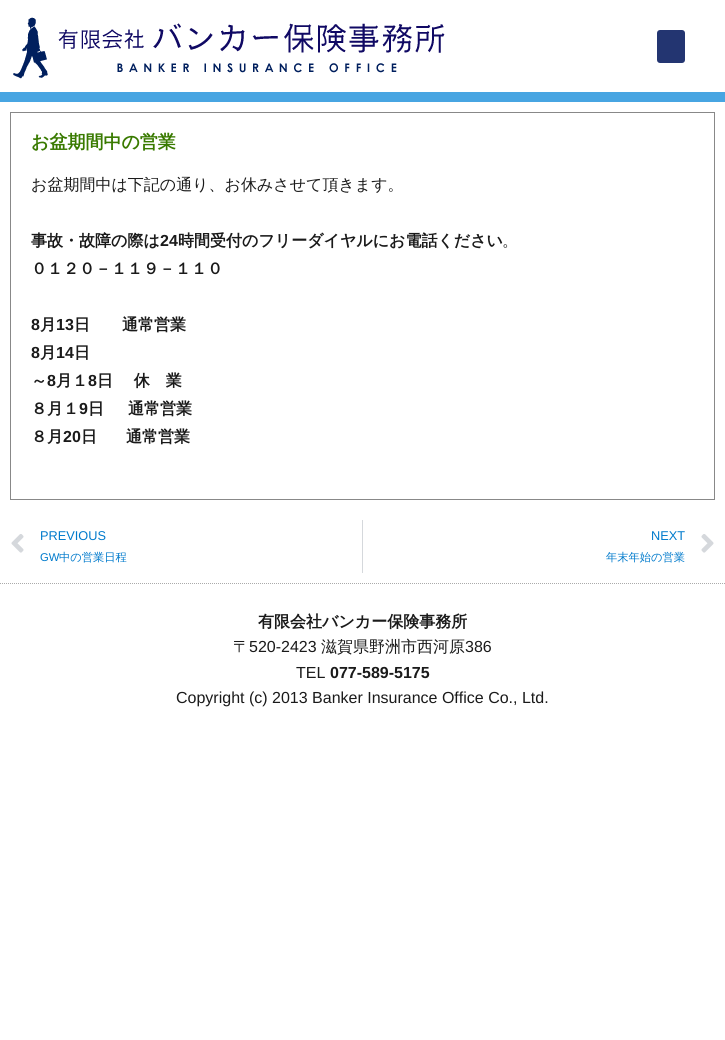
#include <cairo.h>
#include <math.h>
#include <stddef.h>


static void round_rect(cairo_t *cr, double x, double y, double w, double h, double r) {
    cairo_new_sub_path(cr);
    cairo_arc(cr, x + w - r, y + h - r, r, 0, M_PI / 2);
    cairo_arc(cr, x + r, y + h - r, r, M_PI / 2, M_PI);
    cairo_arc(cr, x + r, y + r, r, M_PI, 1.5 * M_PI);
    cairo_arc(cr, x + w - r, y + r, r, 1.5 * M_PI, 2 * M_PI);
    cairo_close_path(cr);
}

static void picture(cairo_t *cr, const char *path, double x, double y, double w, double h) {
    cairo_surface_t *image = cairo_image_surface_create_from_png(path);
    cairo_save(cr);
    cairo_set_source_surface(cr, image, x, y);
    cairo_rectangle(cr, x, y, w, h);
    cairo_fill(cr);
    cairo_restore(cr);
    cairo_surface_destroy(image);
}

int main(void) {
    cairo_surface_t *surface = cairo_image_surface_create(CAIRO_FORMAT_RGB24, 725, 1040);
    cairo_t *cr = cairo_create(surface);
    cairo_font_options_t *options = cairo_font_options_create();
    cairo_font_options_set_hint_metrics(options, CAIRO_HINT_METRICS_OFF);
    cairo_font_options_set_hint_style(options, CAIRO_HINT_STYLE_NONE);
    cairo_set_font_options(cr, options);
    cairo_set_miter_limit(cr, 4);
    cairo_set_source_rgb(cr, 1, 1, 1);
    cairo_paint(cr);
    cairo_set_source_rgb(cr, 0.278, 0.647, 0.886);
    cairo_rectangle(cr, 0, 92, 725, 10);
    cairo_fill(cr);
    picture(cr, "img1.png", 13, 17, 432, 62);
    cairo_set_source_rgb(cr, 0.137, 0.208, 0.443);
    round_rect(cr, 657, 30, 28, 33, 3);
    cairo_fill(cr);
    cairo_rectangle(cr, 10.5, 112.5, 704, 387);
    cairo_set_source_rgb(cr, 0.533, 0.533, 0.533);
    cairo_set_line_width(cr, 1);
    cairo_stroke(cr);
    cairo_select_font_face(cr, "WenQuanYi Zen Hei", CAIRO_FONT_SLANT_NORMAL, CAIRO_FONT_WEIGHT_BOLD);
    cairo_set_font_size(cr, 18);
    cairo_set_source_rgb(cr, 0.224, 0.478, 0);
    cairo_move_to(cr, 31, 148);
    cairo_show_text(cr, "お盆期間中の営業");
    cairo_select_font_face(cr, "WenQuanYi Zen Hei Medium", CAIRO_FONT_SLANT_NORMAL, CAIRO_FONT_WEIGHT_NORMAL);
    cairo_set_font_size(cr, 16);
    cairo_set_source_rgb(cr, 0.102, 0.102, 0.102);
    cairo_move_to(cr, 31, 190);
    cairo_show_text(cr, "お盆期間中は下記の通り、お休みさせて頂きます。");
    cairo_select_font_face(cr, "WenQuanYi Zen Hei", CAIRO_FONT_SLANT_NORMAL, CAIRO_FONT_WEIGHT_BOLD);
    cairo_move_to(cr, 31, 246);
    cairo_show_text(cr, "事故・故障の際は");
    cairo_select_font_face(cr, "Liberation Sans", CAIRO_FONT_SLANT_NORMAL, CAIRO_FONT_WEIGHT_BOLD);
    cairo_move_to(cr, 160, 246);
    cairo_show_text(cr, "24");
    cairo_select_font_face(cr, "WenQuanYi Zen Hei", CAIRO_FONT_SLANT_NORMAL, CAIRO_FONT_WEIGHT_BOLD);
    cairo_move_to(cr, 178, 246);
    cairo_show_text(cr, "時間受付のフリーダイヤルにお電話ください");
    cairo_select_font_face(cr, "WenQuanYi Zen Hei Medium", CAIRO_FONT_SLANT_NORMAL, CAIRO_FONT_WEIGHT_NORMAL);
    cairo_move_to(cr, 502, 246);
    cairo_show_text(cr, "。");
    cairo_select_font_face(cr, "WenQuanYi Zen Hei", CAIRO_FONT_SLANT_NORMAL, CAIRO_FONT_WEIGHT_BOLD);
    cairo_move_to(cr, 31, 274);
    cairo_show_text(cr, "０１２０－１１９－１１０");
    cairo_select_font_face(cr, "Liberation Sans", CAIRO_FONT_SLANT_NORMAL, CAIRO_FONT_WEIGHT_BOLD);
    cairo_move_to(cr, 31, 330);
    cairo_show_text(cr, "8");
    cairo_select_font_face(cr, "WenQuanYi Zen Hei", CAIRO_FONT_SLANT_NORMAL, CAIRO_FONT_WEIGHT_BOLD);
    cairo_move_to(cr, 40, 330);
    cairo_show_text(cr, "月");
    cairo_select_font_face(cr, "Liberation Sans", CAIRO_FONT_SLANT_NORMAL, CAIRO_FONT_WEIGHT_BOLD);
    cairo_move_to(cr, 56, 330);
    cairo_show_text(cr, "13");
    cairo_select_font_face(cr, "WenQuanYi Zen Hei", CAIRO_FONT_SLANT_NORMAL, CAIRO_FONT_WEIGHT_BOLD);
    cairo_move_to(cr, 74, 330);
    cairo_show_text(cr, "日　　通常営業");
    cairo_select_font_face(cr, "Liberation Sans", CAIRO_FONT_SLANT_NORMAL, CAIRO_FONT_WEIGHT_BOLD);
    cairo_move_to(cr, 31, 358);
    cairo_show_text(cr, "8");
    cairo_select_font_face(cr, "WenQuanYi Zen Hei", CAIRO_FONT_SLANT_NORMAL, CAIRO_FONT_WEIGHT_BOLD);
    cairo_move_to(cr, 40, 358);
    cairo_show_text(cr, "月");
    cairo_select_font_face(cr, "Liberation Sans", CAIRO_FONT_SLANT_NORMAL, CAIRO_FONT_WEIGHT_BOLD);
    cairo_move_to(cr, 56, 358);
    cairo_show_text(cr, "14");
    cairo_select_font_face(cr, "WenQuanYi Zen Hei", CAIRO_FONT_SLANT_NORMAL, CAIRO_FONT_WEIGHT_BOLD);
    cairo_move_to(cr, 74, 358);
    cairo_show_text(cr, "日");
    cairo_move_to(cr, 31, 386);
    cairo_show_text(cr, "～");
    cairo_select_font_face(cr, "Liberation Sans", CAIRO_FONT_SLANT_NORMAL, CAIRO_FONT_WEIGHT_BOLD);
    cairo_move_to(cr, 47, 386);
    cairo_show_text(cr, "8");
    cairo_select_font_face(cr, "WenQuanYi Zen Hei", CAIRO_FONT_SLANT_NORMAL, CAIRO_FONT_WEIGHT_BOLD);
    cairo_move_to(cr, 56, 386);
    cairo_show_text(cr, "月１");
    cairo_select_font_face(cr, "Liberation Sans", CAIRO_FONT_SLANT_NORMAL, CAIRO_FONT_WEIGHT_BOLD);
    cairo_move_to(cr, 88, 386);
    cairo_show_text(cr, "8");
    cairo_select_font_face(cr, "WenQuanYi Zen Hei", CAIRO_FONT_SLANT_NORMAL, CAIRO_FONT_WEIGHT_BOLD);
    cairo_move_to(cr, 97, 386);
    cairo_show_text(cr, "日　 休　業");
    cairo_move_to(cr, 31, 414);
    cairo_show_text(cr, "８月１");
    cairo_select_font_face(cr, "Liberation Sans", CAIRO_FONT_SLANT_NORMAL, CAIRO_FONT_WEIGHT_BOLD);
    cairo_move_to(cr, 79, 414);
    cairo_show_text(cr, "9");
    cairo_select_font_face(cr, "WenQuanYi Zen Hei", CAIRO_FONT_SLANT_NORMAL, CAIRO_FONT_WEIGHT_BOLD);
    cairo_move_to(cr, 88, 414);
    cairo_show_text(cr, "日");
    cairo_move_to(cr, 128, 414);
    cairo_show_text(cr, "通常営業");
    cairo_move_to(cr, 31, 442);
    cairo_show_text(cr, "８月");
    cairo_select_font_face(cr, "Liberation Sans", CAIRO_FONT_SLANT_NORMAL, CAIRO_FONT_WEIGHT_BOLD);
    cairo_move_to(cr, 63, 442);
    cairo_show_text(cr, "20");
    cairo_select_font_face(cr, "WenQuanYi Zen Hei", CAIRO_FONT_SLANT_NORMAL, CAIRO_FONT_WEIGHT_BOLD);
    cairo_move_to(cr, 81, 442);
    cairo_show_text(cr, "日");
    cairo_move_to(cr, 126, 442);
    cairo_show_text(cr, "通常営業");
    picture(cr, "img2.png", 11, 534, 13, 19);
    cairo_select_font_face(cr, "Liberation Sans", CAIRO_FONT_SLANT_NORMAL, CAIRO_FONT_WEIGHT_NORMAL);
    cairo_set_font_size(cr, 12.75);
    cairo_set_source_rgb(cr, 0, 0.478, 0.8);
    cairo_move_to(cr, 40, 540);
    cairo_show_text(cr, "PREVIOUS");
    cairo_set_font_size(cr, 11.25);
    cairo_move_to(cr, 40, 561);
    cairo_show_text(cr, "GW");
    cairo_select_font_face(cr, "WenQuanYi Zen Hei Medium", CAIRO_FONT_SLANT_NORMAL, CAIRO_FONT_WEIGHT_NORMAL);
    cairo_move_to(cr, 59, 561);
    cairo_show_text(cr, "中の営業日程");
    cairo_set_source_rgb(cr, 0.835, 0.847, 0.863);
    cairo_rectangle(cr, 362, 520, 1, 53);
    cairo_fill(cr);
    cairo_select_font_face(cr, "Liberation Sans", CAIRO_FONT_SLANT_NORMAL, CAIRO_FONT_WEIGHT_NORMAL);
    cairo_set_font_size(cr, 12.75);
    cairo_set_source_rgb(cr, 0, 0.478, 0.8);
    cairo_move_to(cr, 651, 540);
    cairo_show_text(cr, "NEXT");
    cairo_select_font_face(cr, "WenQuanYi Zen Hei Medium", CAIRO_FONT_SLANT_NORMAL, CAIRO_FONT_WEIGHT_NORMAL);
    cairo_set_font_size(cr, 11.25);
    cairo_move_to(cr, 606, 561);
    cairo_show_text(cr, "年末年始の営業");
    picture(cr, "img3.png", 701, 534, 13, 19);
    cairo_new_path(cr);
    cairo_move_to(cr, 0, 583.5);
    cairo_line_to(cr, 725, 583.5);
    cairo_set_source_rgb(cr, 0.667, 0.667, 0.667);
    cairo_set_dash(cr, (double[]){1, 1}, 2, 0);
    cairo_stroke(cr);
    cairo_select_font_face(cr, "WenQuanYi Zen Hei", CAIRO_FONT_SLANT_NORMAL, CAIRO_FONT_WEIGHT_BOLD);
    cairo_set_font_size(cr, 16);
    cairo_set_source_rgb(cr, 0.102, 0.102, 0.102);
    cairo_move_to(cr, 258, 627);
    cairo_show_text(cr, "有限会社バンカー保険事務所");
    cairo_select_font_face(cr, "WenQuanYi Zen Hei Medium", CAIRO_FONT_SLANT_NORMAL, CAIRO_FONT_WEIGHT_NORMAL);
    cairo_move_to(cr, 233, 652);
    cairo_show_text(cr, "〒");
    cairo_select_font_face(cr, "Liberation Sans", CAIRO_FONT_SLANT_NORMAL, CAIRO_FONT_WEIGHT_NORMAL);
    cairo_move_to(cr, 249, 652);
    cairo_show_text(cr, "520-2423");
    cairo_select_font_face(cr, "WenQuanYi Zen Hei Medium", CAIRO_FONT_SLANT_NORMAL, CAIRO_FONT_WEIGHT_NORMAL);
    cairo_move_to(cr, 321, 652);
    cairo_show_text(cr, "滋賀県野洲市西河原");
    cairo_select_font_face(cr, "Liberation Sans", CAIRO_FONT_SLANT_NORMAL, CAIRO_FONT_WEIGHT_NORMAL);
    cairo_move_to(cr, 465, 652);
    cairo_show_text(cr, "386");
    cairo_move_to(cr, 296, 678);
    cairo_show_text(cr, "TEL");
    cairo_select_font_face(cr, "Liberation Sans", CAIRO_FONT_SLANT_NORMAL, CAIRO_FONT_WEIGHT_BOLD);
    cairo_move_to(cr, 330, 678);
    cairo_show_text(cr, "077-589-5175");
    cairo_select_font_face(cr, "Liberation Sans", CAIRO_FONT_SLANT_NORMAL, CAIRO_FONT_WEIGHT_NORMAL);
    cairo_move_to(cr, 176, 703);
    cairo_show_text(cr, "Copyright (c) 2013 Banker Insurance Office Co., Ltd.");
    cairo_surface_write_to_png(surface, "page.png");
    cairo_font_options_destroy(options);
    cairo_destroy(cr);
    cairo_surface_destroy(surface);
    return 0;
}
